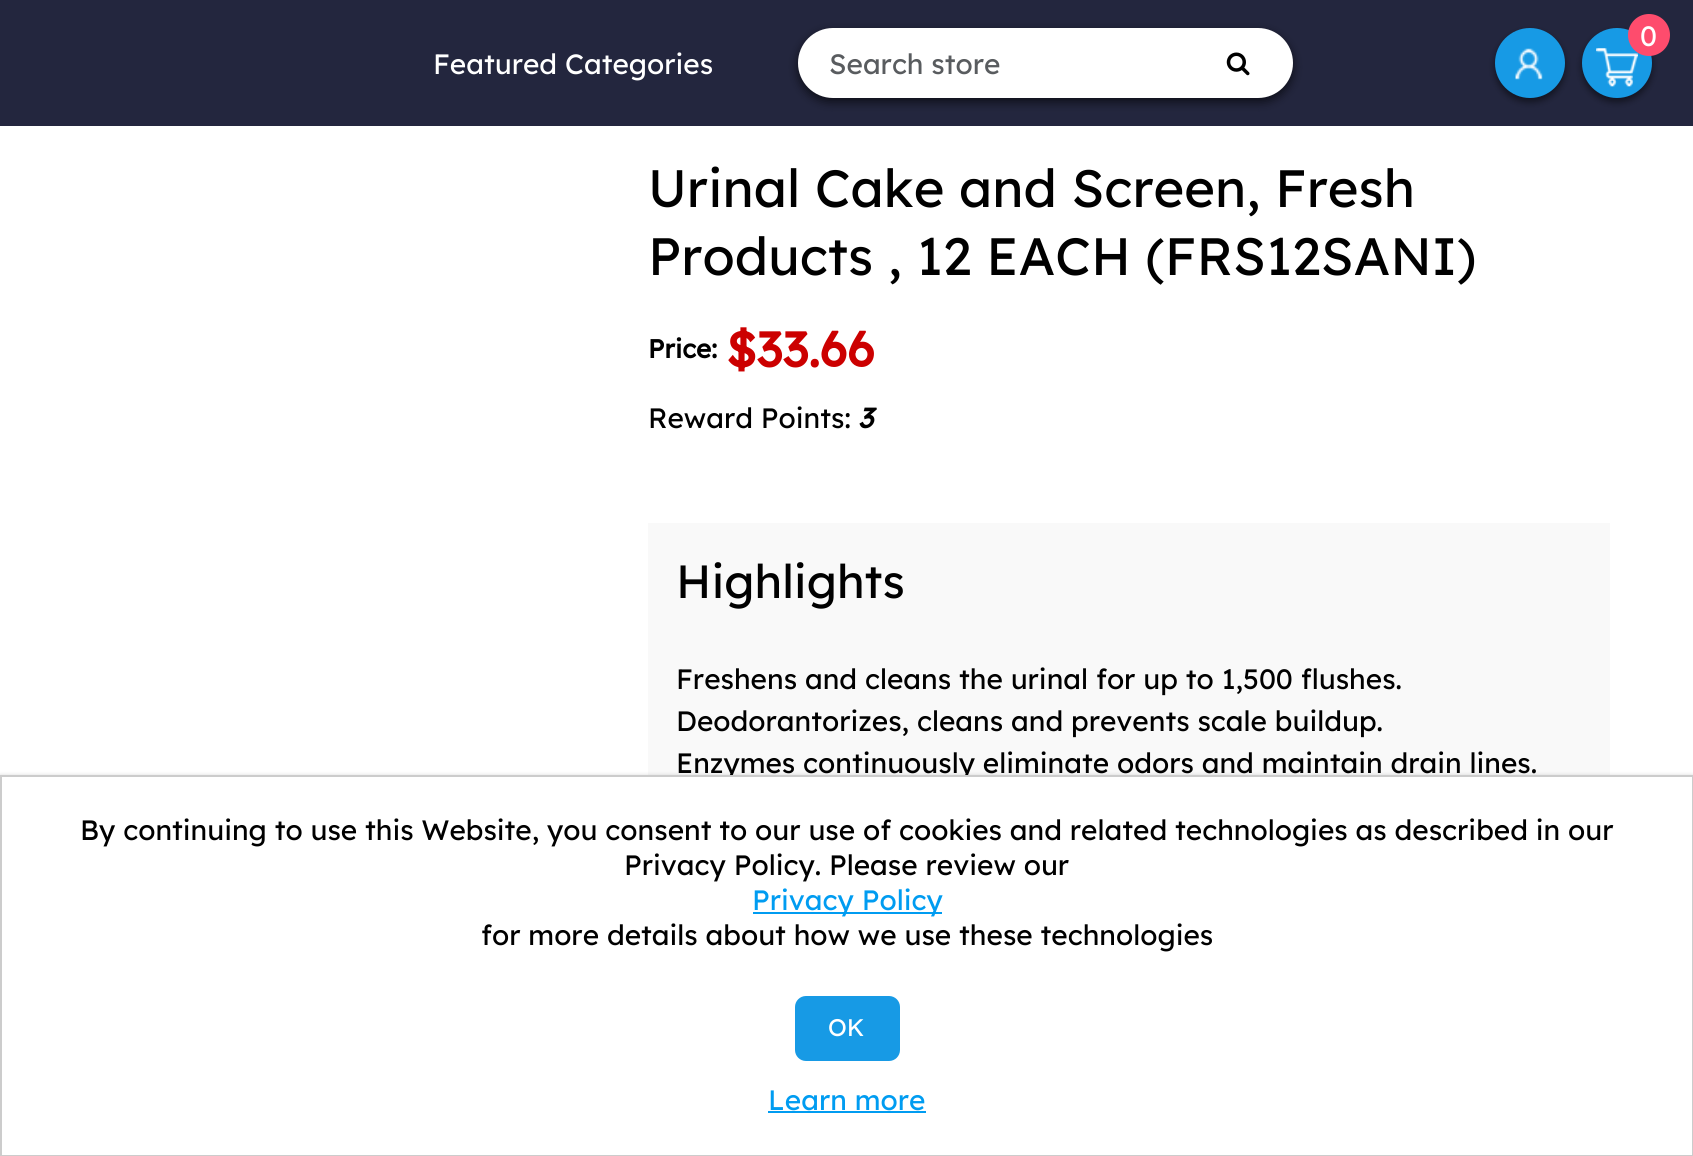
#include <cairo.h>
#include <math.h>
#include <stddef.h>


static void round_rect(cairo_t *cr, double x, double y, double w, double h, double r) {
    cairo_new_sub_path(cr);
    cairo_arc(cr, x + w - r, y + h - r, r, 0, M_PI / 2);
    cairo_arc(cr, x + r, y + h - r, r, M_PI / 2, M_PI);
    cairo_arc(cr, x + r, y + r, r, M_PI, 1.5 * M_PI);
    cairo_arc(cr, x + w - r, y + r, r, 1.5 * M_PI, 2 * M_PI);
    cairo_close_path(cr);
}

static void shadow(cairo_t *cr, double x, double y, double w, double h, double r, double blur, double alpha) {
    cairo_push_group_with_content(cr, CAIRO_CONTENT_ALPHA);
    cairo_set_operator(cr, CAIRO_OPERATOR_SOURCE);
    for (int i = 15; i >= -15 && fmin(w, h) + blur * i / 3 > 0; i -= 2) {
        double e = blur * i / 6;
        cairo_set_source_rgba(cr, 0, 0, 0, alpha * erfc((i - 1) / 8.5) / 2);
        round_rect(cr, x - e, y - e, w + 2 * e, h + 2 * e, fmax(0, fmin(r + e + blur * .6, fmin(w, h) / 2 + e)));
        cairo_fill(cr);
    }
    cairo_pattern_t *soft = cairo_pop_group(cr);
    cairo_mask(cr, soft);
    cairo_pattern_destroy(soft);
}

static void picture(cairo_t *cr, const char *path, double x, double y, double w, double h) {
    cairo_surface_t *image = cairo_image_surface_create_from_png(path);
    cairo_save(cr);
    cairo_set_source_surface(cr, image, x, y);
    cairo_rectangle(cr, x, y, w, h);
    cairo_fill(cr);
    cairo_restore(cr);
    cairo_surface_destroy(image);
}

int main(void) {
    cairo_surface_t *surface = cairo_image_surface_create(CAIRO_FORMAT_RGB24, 1693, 1156);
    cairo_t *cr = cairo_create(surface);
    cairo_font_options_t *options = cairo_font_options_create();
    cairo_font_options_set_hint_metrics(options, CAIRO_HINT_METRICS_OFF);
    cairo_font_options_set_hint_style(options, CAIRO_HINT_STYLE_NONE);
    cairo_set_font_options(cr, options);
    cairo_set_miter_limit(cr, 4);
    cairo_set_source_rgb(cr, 1, 1, 1);
    cairo_paint(cr);
    cairo_set_source_rgb(cr, 0.137, 0.149, 0.243);
    cairo_rectangle(cr, 0, 0, 1693, 126);
    cairo_fill(cr);
    cairo_set_source_rgb(cr, 0, 0, 0);
    shadow(cr, 1495, 32, 70, 70, 35, 3.5, 0.5);
    cairo_set_source_rgb(cr, 0.09, 0.604, 0.898);
    cairo_arc(cr, 1530, 63, 35, 0, 2 * M_PI);
    cairo_fill(cr);
    picture(cr, "img1.png", 1515, 48, 28, 32);
    cairo_set_source_rgb(cr, 0, 0, 0);
    shadow(cr, 1582, 32, 70, 70, 35, 3.5, 0.5);
    cairo_set_source_rgb(cr, 0.09, 0.604, 0.898);
    cairo_arc(cr, 1617, 63, 35, 0, 2 * M_PI);
    cairo_fill(cr);
    picture(cr, "img2.png", 1596, 48, 42, 39);
    cairo_set_source_rgb(cr, 0.996, 0.298, 0.427);
    cairo_arc(cr, 1649, 35, 21, 0, 2 * M_PI);
    cairo_fill(cr);
    cairo_select_font_face(cr, "Lexend", CAIRO_FONT_SLANT_NORMAL, CAIRO_FONT_WEIGHT_NORMAL);
    cairo_set_font_size(cr, 28);
    cairo_set_source_rgb(cr, 1, 1, 1);
    cairo_move_to(cr, 1640, 46);
    cairo_show_text(cr, "0");
    cairo_move_to(cr, 433, 74);
    cairo_show_text(cr, "Featured Categories");
    cairo_set_source_rgb(cr, 0, 0, 0);
    shadow(cr, 798, 32, 495, 70, 35, 5, 0.62);
    cairo_set_source_rgb(cr, 1, 1, 1);
    round_rect(cr, 798, 28, 495, 70, 35);
    cairo_fill(cr);
    cairo_set_source_rgb(cr, 0.349, 0.361, 0.373);
    cairo_move_to(cr, 829, 74);
    cairo_show_text(cr, "Search store");
    picture(cr, "img3.png", 1226, 52, 24, 24);
    cairo_set_font_size(cr, 52.5);
    cairo_set_source_rgb(cr, 0, 0, 0);
    cairo_move_to(cr, 648, 207);
    cairo_show_text(cr, "Urinal Cake and Screen, Fresh");
    cairo_move_to(cr, 648, 275);
    cairo_show_text(cr, "Products , 12 EACH (FRS12SANI)");
    cairo_select_font_face(cr, "Lexend", CAIRO_FONT_SLANT_NORMAL, CAIRO_FONT_WEIGHT_BOLD);
    cairo_set_font_size(cr, 26);
    cairo_move_to(cr, 648, 358);
    cairo_show_text(cr, "Price:");
    cairo_set_font_size(cr, 49);
    cairo_set_source_rgb(cr, 0.8, 0, 0);
    cairo_move_to(cr, 726, 367);
    cairo_show_text(cr, "$33.66");
    cairo_select_font_face(cr, "Lexend", CAIRO_FONT_SLANT_NORMAL, CAIRO_FONT_WEIGHT_NORMAL);
    cairo_set_font_size(cr, 28);
    cairo_set_source_rgb(cr, 0, 0, 0);
    cairo_move_to(cr, 648, 428);
    cairo_show_text(cr, "Reward Points:");
    cairo_select_font_face(cr, "Lexend", CAIRO_FONT_SLANT_ITALIC, CAIRO_FONT_WEIGHT_BOLD);
    cairo_move_to(cr, 858, 428);
    cairo_show_text(cr, "3");
    cairo_set_source_rgb(cr, 0.976, 0.976, 0.976);
    cairo_rectangle(cr, 648, 523, 962, 252);
    cairo_fill(cr);
    cairo_select_font_face(cr, "Lexend", CAIRO_FONT_SLANT_NORMAL, CAIRO_FONT_WEIGHT_NORMAL);
    cairo_set_font_size(cr, 46.5);
    cairo_set_source_rgb(cr, 0, 0, 0);
    cairo_move_to(cr, 676, 598);
    cairo_show_text(cr, "Highlights");
    cairo_set_font_size(cr, 28);
    cairo_move_to(cr, 676, 689);
    cairo_show_text(cr, "Freshens and cleans the urinal for up to 1,500 flushes.");
    cairo_move_to(cr, 676, 731);
    cairo_show_text(cr, "Deodorantorizes, cleans and prevents scale buildup.");
    cairo_move_to(cr, 676, 773);
    cairo_show_text(cr, "Enzymes continuously eliminate odors and maintain drain lines.");
    cairo_set_source_rgb(cr, 0, 0, 0);
    shadow(cr, 0, 775, 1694, 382, 0, 2, 0.15);
    cairo_set_source_rgb(cr, 1, 1, 1);
    cairo_rectangle(cr, 1, 776, 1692, 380);
    cairo_fill_preserve(cr);
    cairo_set_source_rgb(cr, 0.8, 0.8, 0.8);
    cairo_stroke(cr);
    cairo_set_source_rgb(cr, 0, 0, 0);
    cairo_move_to(cr, 80, 840);
    cairo_show_text(cr, "By continuing to use this Website, you consent to our use of cookies and related technologies as described in our");
    cairo_move_to(cr, 624, 875);
    cairo_show_text(cr, "Privacy Policy. Please review our");
    cairo_set_source_rgb(cr, 0, 0.612, 0.945);
    cairo_rectangle(cr, 753, 912, 189, 2);
    cairo_fill(cr);
    cairo_move_to(cr, 752, 910);
    cairo_show_text(cr, "Privacy Policy");
    cairo_set_source_rgb(cr, 0, 0, 0);
    cairo_move_to(cr, 481, 945);
    cairo_show_text(cr, "for more details about how we use these technologies");
    cairo_set_source_rgb(cr, 0.09, 0.604, 0.898);
    round_rect(cr, 795, 996, 105, 65, 11);
    cairo_fill(cr);
    cairo_set_font_size(cr, 24);
    cairo_set_source_rgb(cr, 1, 1, 1);
    cairo_move_to(cr, 828, 1036);
    cairo_show_text(cr, "OK");
    cairo_set_font_size(cr, 28);
    cairo_set_source_rgb(cr, 0, 0.612, 0.945);
    cairo_move_to(cr, 768, 1110);
    cairo_show_text(cr, "Learn more");
    cairo_rectangle(cr, 768, 1111, 158, 2);
    cairo_fill(cr);
    cairo_surface_write_to_png(surface, "page.png");
    cairo_font_options_destroy(options);
    cairo_destroy(cr);
    cairo_surface_destroy(surface);
    return 0;
}
